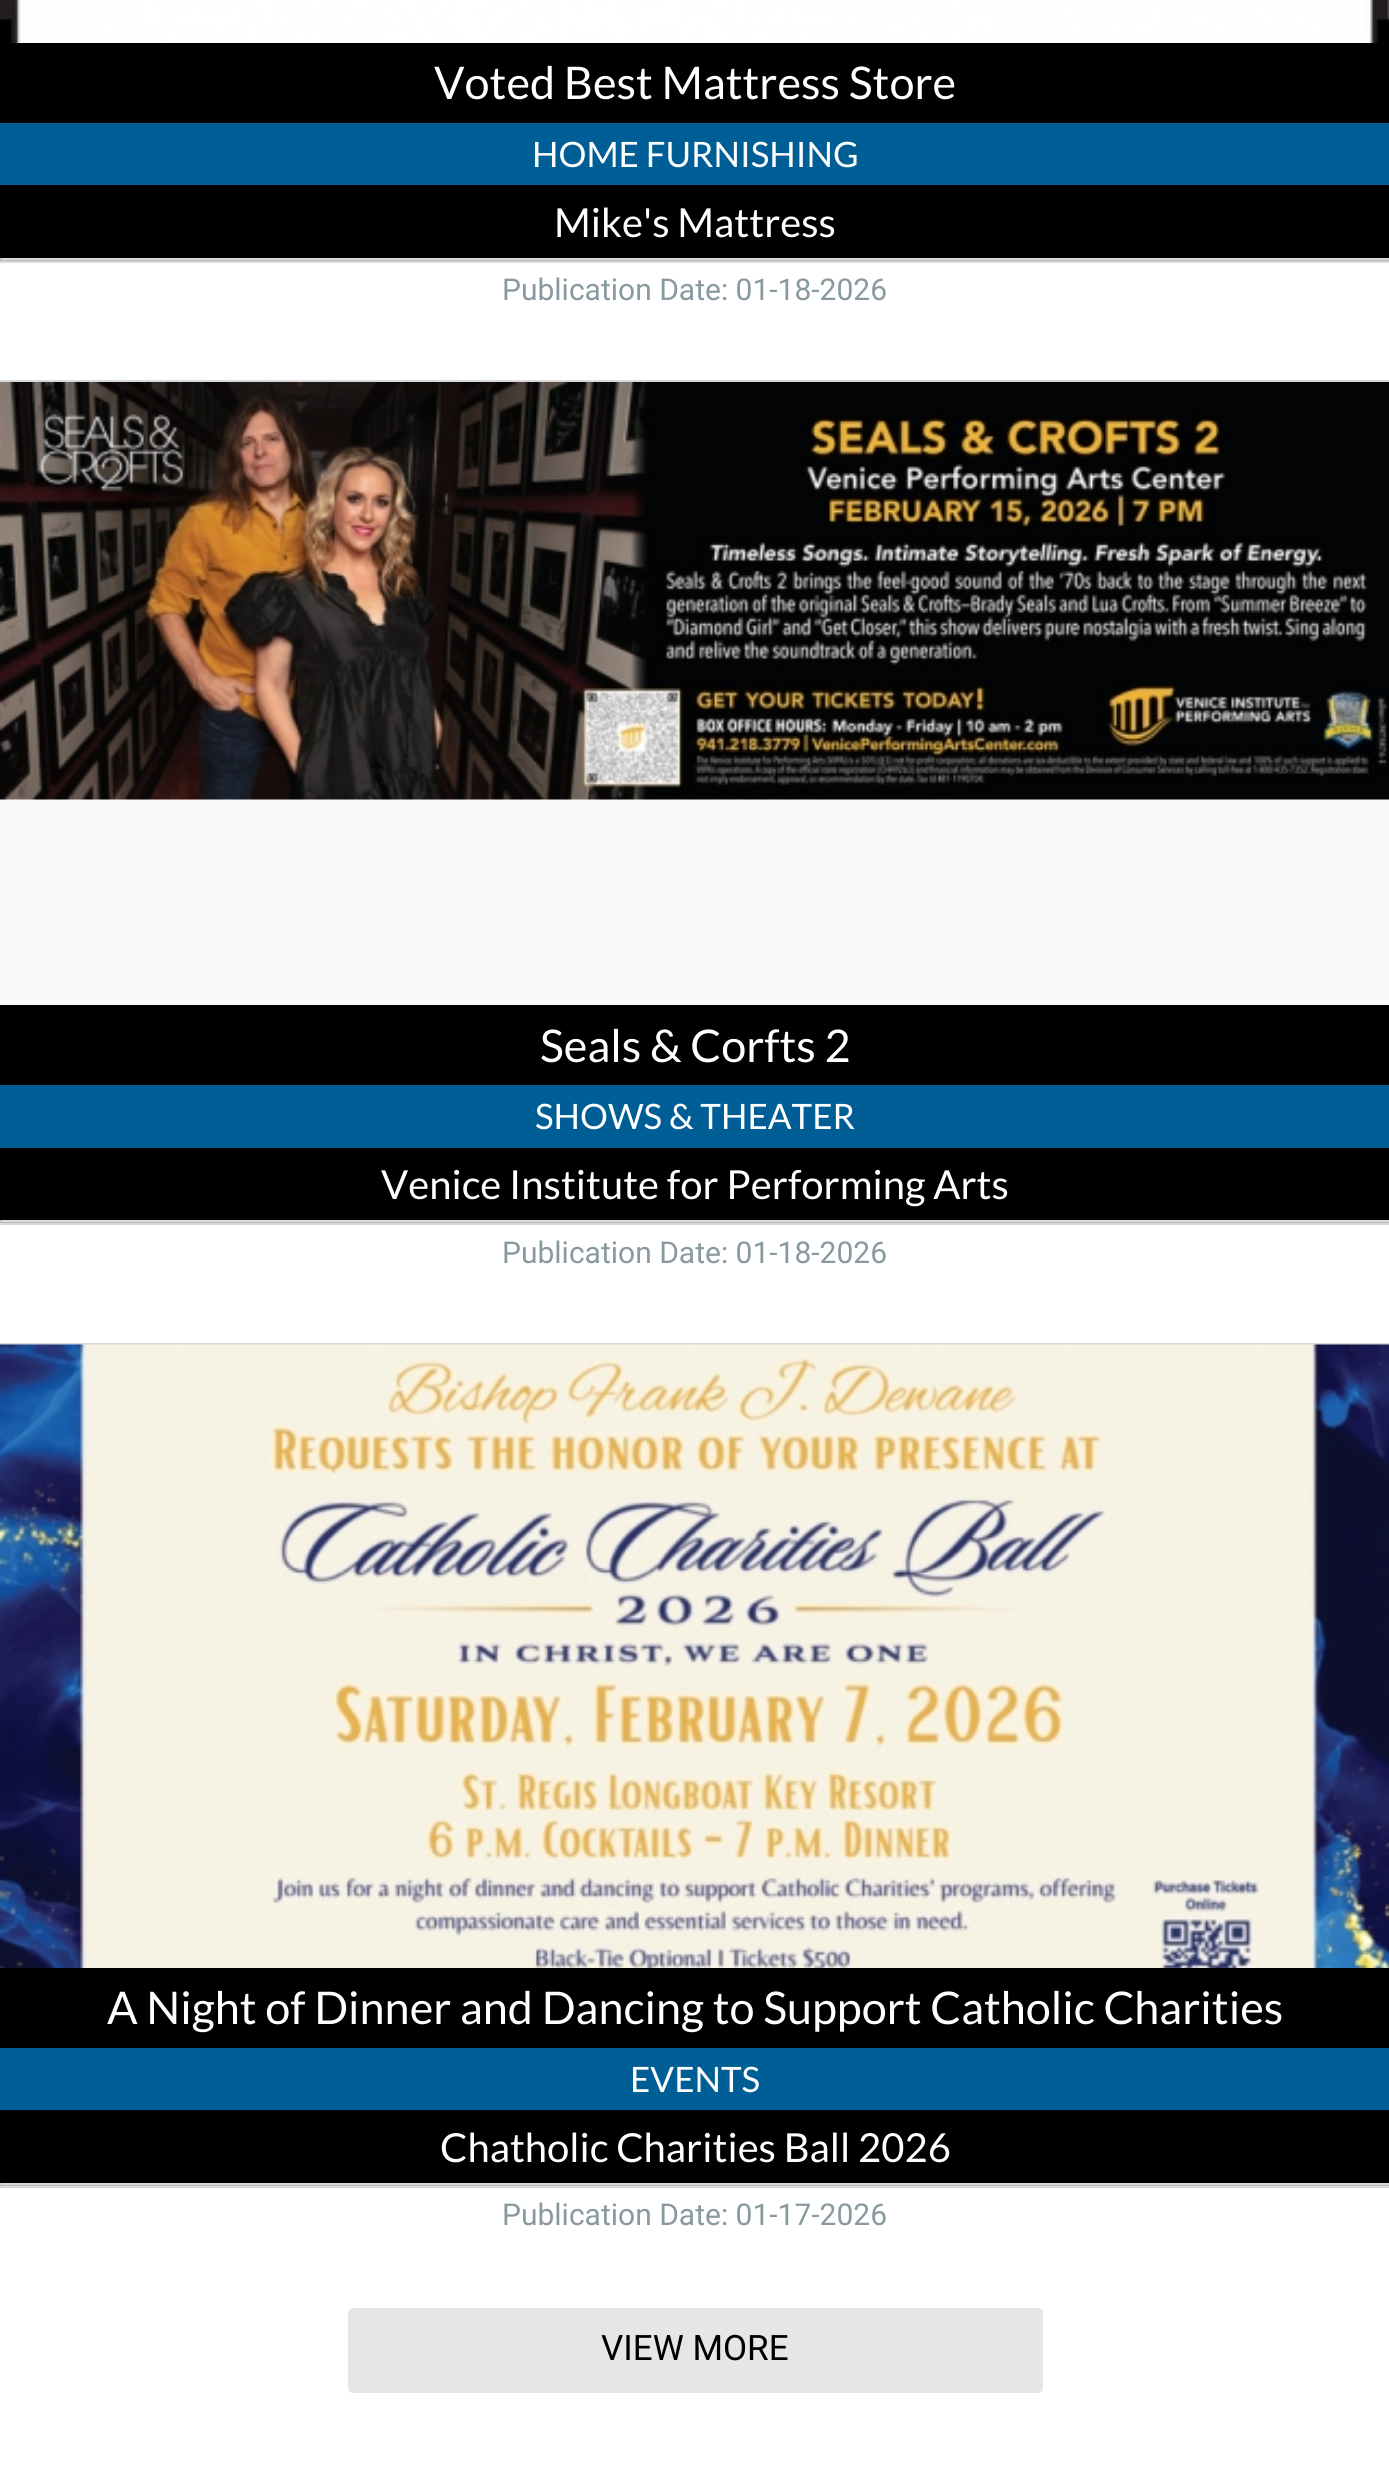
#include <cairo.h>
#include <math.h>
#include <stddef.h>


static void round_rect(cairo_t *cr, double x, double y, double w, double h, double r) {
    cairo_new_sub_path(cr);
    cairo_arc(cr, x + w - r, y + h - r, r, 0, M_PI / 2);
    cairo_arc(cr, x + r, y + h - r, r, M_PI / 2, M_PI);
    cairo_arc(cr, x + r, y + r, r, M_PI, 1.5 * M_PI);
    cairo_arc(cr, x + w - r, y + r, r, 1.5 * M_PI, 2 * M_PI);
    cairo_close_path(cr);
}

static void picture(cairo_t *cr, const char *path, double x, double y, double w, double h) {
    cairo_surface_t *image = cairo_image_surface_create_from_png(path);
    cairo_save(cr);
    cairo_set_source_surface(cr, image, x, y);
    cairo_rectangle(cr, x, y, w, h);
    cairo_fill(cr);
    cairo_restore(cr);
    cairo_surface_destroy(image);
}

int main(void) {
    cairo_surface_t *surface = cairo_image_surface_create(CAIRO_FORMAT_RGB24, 1389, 2472);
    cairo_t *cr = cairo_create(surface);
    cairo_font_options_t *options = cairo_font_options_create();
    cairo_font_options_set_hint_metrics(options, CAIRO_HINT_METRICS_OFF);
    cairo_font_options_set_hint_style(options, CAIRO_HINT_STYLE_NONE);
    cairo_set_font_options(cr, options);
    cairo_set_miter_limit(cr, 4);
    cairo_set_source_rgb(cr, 1, 1, 1);
    cairo_paint(cr);
    cairo_rectangle(cr, -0.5, -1.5, 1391, 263);
    cairo_set_source_rgb(cr, 0.851, 0.851, 0.851);
    cairo_set_line_width(cr, 3);
    cairo_stroke(cr);
    cairo_set_source_rgba(cr, 0, 0, 0, 0.15);
    cairo_rectangle(cr, 0, 258, 1389, 3);
    cairo_fill(cr);
    picture(cr, "img1.png", 0, 0, 1389, 43);
    cairo_set_source_rgb(cr, 0, 0, 0);
    cairo_rectangle(cr, 0, 43, 1389, 215);
    cairo_fill(cr);
    cairo_select_font_face(cr, "Lato", CAIRO_FONT_SLANT_NORMAL, CAIRO_FONT_WEIGHT_NORMAL);
    cairo_set_font_size(cr, 45);
    cairo_set_source_rgb(cr, 1, 1, 1);
    cairo_move_to(cr, 434, 99);
    cairo_show_text(cr, "Voted Best Mattress Store");
    cairo_set_source_rgb(cr, 0, 0.369, 0.588);
    cairo_rectangle(cr, 0, 123, 1389, 62);
    cairo_fill(cr);
    cairo_set_font_size(cr, 35);
    cairo_set_source_rgb(cr, 1, 1, 1);
    cairo_move_to(cr, 532, 167);
    cairo_show_text(cr, "HOME FURNISHING");
    cairo_set_font_size(cr, 40);
    cairo_move_to(cr, 554, 237);
    cairo_show_text(cr, "Mike's Mattress");
    cairo_select_font_face(cr, "Roboto", CAIRO_FONT_SLANT_NORMAL, CAIRO_FONT_WEIGHT_NORMAL);
    cairo_set_font_size(cr, 30);
    cairo_set_source_rgb(cr, 0.533, 0.6, 0.627);
    cairo_move_to(cr, 502, 300);
    cairo_show_text(cr, "Publication Date: 01-18-2026");
    cairo_rectangle(cr, -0.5, 381.5, 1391, 842);
    cairo_set_source_rgb(cr, 0.851, 0.851, 0.851);
    cairo_stroke(cr);
    cairo_set_source_rgba(cr, 0, 0, 0, 0.15);
    cairo_rectangle(cr, 0, 1220, 1389, 3);
    cairo_fill(cr);
    cairo_set_source_rgb(cr, 0.98, 0.98, 0.98);
    cairo_rectangle(cr, 0, 799, 1389, 206);
    cairo_fill(cr);
    picture(cr, "img2.png", 0, 382, 1389, 418);
    cairo_set_source_rgb(cr, 0, 0, 0);
    cairo_rectangle(cr, 0, 1005, 1389, 215);
    cairo_fill(cr);
    cairo_select_font_face(cr, "Lato", CAIRO_FONT_SLANT_NORMAL, CAIRO_FONT_WEIGHT_NORMAL);
    cairo_set_font_size(cr, 45);
    cairo_set_source_rgb(cr, 1, 1, 1);
    cairo_move_to(cr, 540, 1062);
    cairo_show_text(cr, "Seals & Corfts 2");
    cairo_set_source_rgb(cr, 0, 0.369, 0.588);
    cairo_rectangle(cr, 0, 1085, 1389, 63);
    cairo_fill(cr);
    cairo_set_font_size(cr, 35);
    cairo_set_source_rgb(cr, 1, 1, 1);
    cairo_move_to(cr, 535, 1129);
    cairo_show_text(cr, "SHOWS & THEATER");
    cairo_set_font_size(cr, 40);
    cairo_move_to(cr, 381, 1199);
    cairo_show_text(cr, "Venice Institute for Performing Arts");
    cairo_select_font_face(cr, "Roboto", CAIRO_FONT_SLANT_NORMAL, CAIRO_FONT_WEIGHT_NORMAL);
    cairo_set_font_size(cr, 30);
    cairo_set_source_rgb(cr, 0.533, 0.6, 0.627);
    cairo_move_to(cr, 502, 1263);
    cairo_show_text(cr, "Publication Date: 01-18-2026");
    cairo_rectangle(cr, -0.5, 1344.5, 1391, 842);
    cairo_set_source_rgb(cr, 0.851, 0.851, 0.851);
    cairo_stroke(cr);
    cairo_set_source_rgba(cr, 0, 0, 0, 0.15);
    cairo_rectangle(cr, 0, 2183, 1389, 3);
    cairo_fill(cr);
    picture(cr, "img3.png", 0, 1344, 1389, 624);
    cairo_set_source_rgb(cr, 0, 0, 0);
    cairo_rectangle(cr, 0, 1968, 1389, 215);
    cairo_fill(cr);
    cairo_select_font_face(cr, "Lato", CAIRO_FONT_SLANT_NORMAL, CAIRO_FONT_WEIGHT_NORMAL);
    cairo_set_font_size(cr, 45);
    cairo_set_source_rgb(cr, 1, 1, 1);
    cairo_move_to(cr, 107, 2024);
    cairo_show_text(cr, "A Night of Dinner and Dancing to Support Catholic Charities");
    cairo_set_source_rgb(cr, 0, 0.369, 0.588);
    cairo_rectangle(cr, 0, 2048, 1389, 62);
    cairo_fill(cr);
    cairo_set_font_size(cr, 35);
    cairo_set_source_rgb(cr, 1, 1, 1);
    cairo_move_to(cr, 630, 2092);
    cairo_show_text(cr, "EVENTS");
    cairo_set_font_size(cr, 40);
    cairo_move_to(cr, 440, 2162);
    cairo_show_text(cr, "Chatholic Charities Ball 2026");
    cairo_select_font_face(cr, "Roboto", CAIRO_FONT_SLANT_NORMAL, CAIRO_FONT_WEIGHT_NORMAL);
    cairo_set_font_size(cr, 30);
    cairo_set_source_rgb(cr, 0.533, 0.6, 0.627);
    cairo_move_to(cr, 502, 2225);
    cairo_show_text(cr, "Publication Date: 01-17-2026");
    cairo_set_source_rgb(cr, 0.902, 0.902, 0.902);
    round_rect(cr, 348, 2308, 695, 85, 5);
    cairo_fill(cr);
    cairo_set_font_size(cr, 35);
    cairo_set_source_rgb(cr, 0, 0, 0);
    cairo_move_to(cr, 601, 2360);
    cairo_show_text(cr, "VIEW MORE");
    cairo_surface_write_to_png(surface, "page.png");
    cairo_font_options_destroy(options);
    cairo_destroy(cr);
    cairo_surface_destroy(surface);
    return 0;
}
